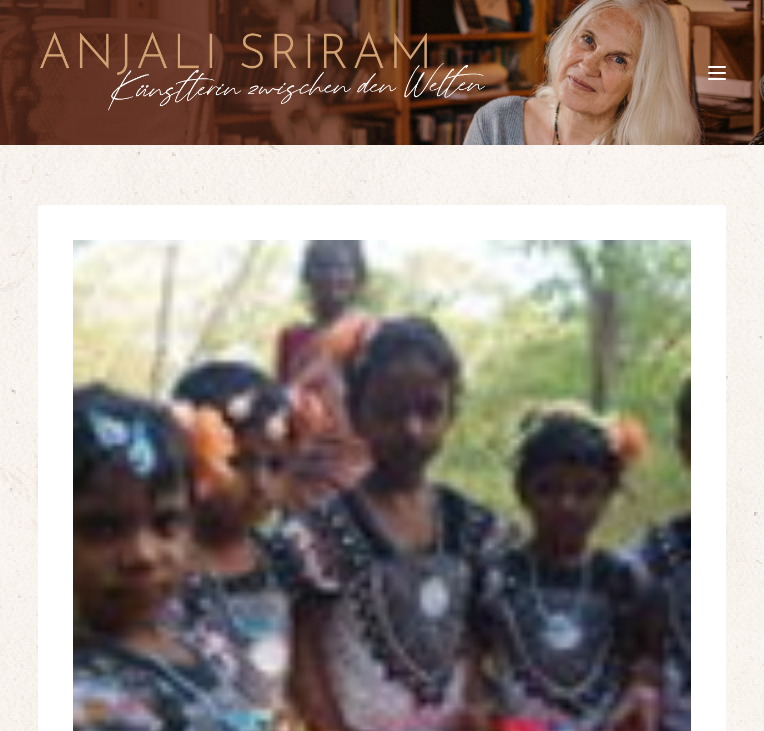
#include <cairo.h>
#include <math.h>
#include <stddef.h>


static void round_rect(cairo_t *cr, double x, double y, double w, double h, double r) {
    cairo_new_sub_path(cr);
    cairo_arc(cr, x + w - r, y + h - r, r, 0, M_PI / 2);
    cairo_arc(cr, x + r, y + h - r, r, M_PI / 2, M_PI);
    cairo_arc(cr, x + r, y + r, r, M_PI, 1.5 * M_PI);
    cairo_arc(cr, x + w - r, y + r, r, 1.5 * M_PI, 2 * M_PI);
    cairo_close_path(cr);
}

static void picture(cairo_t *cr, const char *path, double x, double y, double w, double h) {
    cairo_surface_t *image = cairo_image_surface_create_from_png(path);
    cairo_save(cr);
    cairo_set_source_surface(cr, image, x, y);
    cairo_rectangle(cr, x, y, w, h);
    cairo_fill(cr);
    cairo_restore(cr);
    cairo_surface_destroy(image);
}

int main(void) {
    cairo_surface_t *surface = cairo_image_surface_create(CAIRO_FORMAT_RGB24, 764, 731);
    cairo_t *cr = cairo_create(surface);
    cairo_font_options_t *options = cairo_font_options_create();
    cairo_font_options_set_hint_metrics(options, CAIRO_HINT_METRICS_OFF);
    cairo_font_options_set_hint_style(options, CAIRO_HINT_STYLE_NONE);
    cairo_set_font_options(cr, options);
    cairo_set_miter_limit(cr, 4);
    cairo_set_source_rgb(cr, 1, 1, 1);
    cairo_paint(cr);
    picture(cr, "img1.png", 0, 145, 764, 586);
    picture(cr, "img2.png", 0, 0, 764, 145);
    picture(cr, "img3.png", 40, 32, 445, 79);
    cairo_set_source_rgb(cr, 1, 1, 1);
    round_rect(cr, 708, 66, 18, 2, 1);
    cairo_fill(cr);
    round_rect(cr, 708, 72, 18, 2, 1);
    cairo_fill(cr);
    round_rect(cr, 708, 78, 18, 2, 1);
    cairo_fill(cr);
    round_rect(cr, 38, 205, 688, 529, 3);
    cairo_fill(cr);
    picture(cr, "img4.png", 73, 240, 618, 491);
    cairo_surface_write_to_png(surface, "page.png");
    cairo_font_options_destroy(options);
    cairo_destroy(cr);
    cairo_surface_destroy(surface);
    return 0;
}
